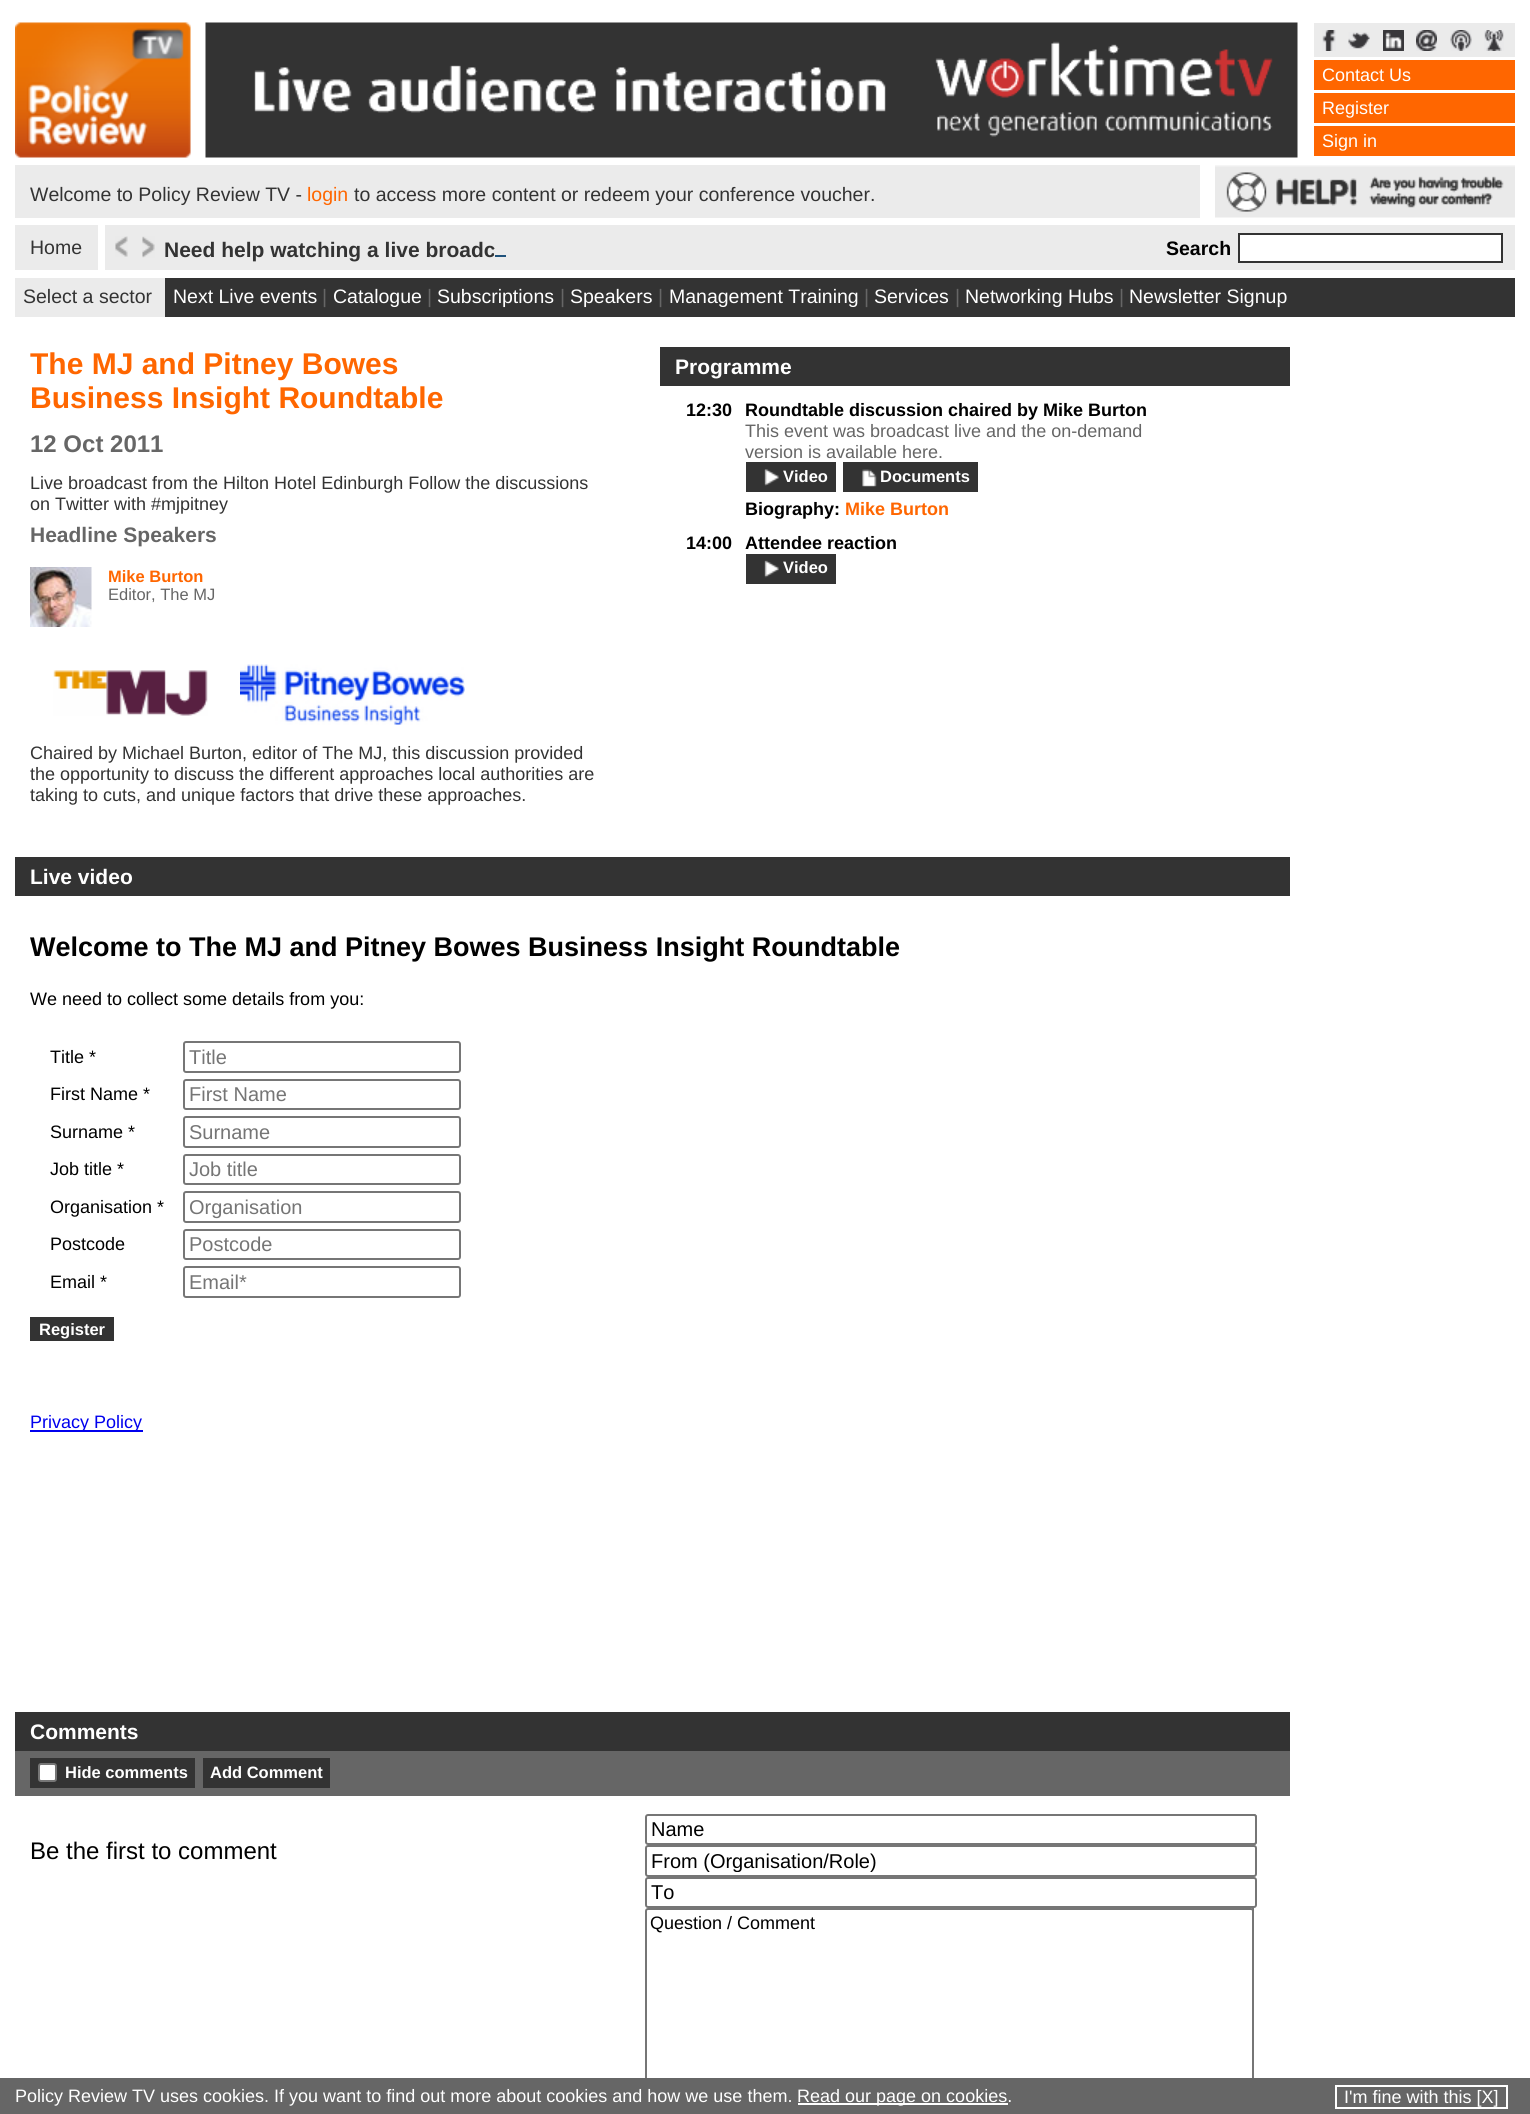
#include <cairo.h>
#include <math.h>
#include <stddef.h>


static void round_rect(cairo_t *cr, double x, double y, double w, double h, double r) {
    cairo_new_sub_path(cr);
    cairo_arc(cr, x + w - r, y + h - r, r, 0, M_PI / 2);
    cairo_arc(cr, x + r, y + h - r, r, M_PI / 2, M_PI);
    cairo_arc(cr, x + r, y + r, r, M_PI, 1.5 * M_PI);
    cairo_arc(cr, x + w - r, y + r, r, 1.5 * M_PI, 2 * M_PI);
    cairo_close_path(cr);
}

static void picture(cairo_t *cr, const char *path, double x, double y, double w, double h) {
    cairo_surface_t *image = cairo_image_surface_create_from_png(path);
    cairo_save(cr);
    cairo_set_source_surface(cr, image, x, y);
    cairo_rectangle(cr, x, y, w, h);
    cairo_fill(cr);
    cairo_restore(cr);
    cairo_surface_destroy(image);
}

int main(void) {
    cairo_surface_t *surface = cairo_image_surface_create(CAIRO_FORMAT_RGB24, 1530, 2114);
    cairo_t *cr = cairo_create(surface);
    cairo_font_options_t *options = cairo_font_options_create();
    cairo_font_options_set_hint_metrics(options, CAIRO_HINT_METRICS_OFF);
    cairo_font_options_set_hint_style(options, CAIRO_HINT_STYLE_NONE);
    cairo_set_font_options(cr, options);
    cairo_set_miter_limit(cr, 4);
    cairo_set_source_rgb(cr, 1, 1, 1);
    cairo_paint(cr);
    picture(cr, "img1.png", 15, 22, 176, 136);
    picture(cr, "img2.png", 205, 22, 1093, 136);
    cairo_set_source_rgb(cr, 0.918, 0.918, 0.918);
    cairo_rectangle(cr, 1314, 23, 201, 34);
    cairo_fill(cr);
    picture(cr, "img3.png", 1322, 30, 14, 21);
    picture(cr, "img4.png", 1348, 32, 22, 17);
    picture(cr, "img5.png", 1383, 30, 21, 21);
    picture(cr, "img6.png", 1416, 30, 21, 21);
    picture(cr, "img7.png", 1450, 30, 22, 21);
    picture(cr, "img8.png", 1484, 30, 20, 21);
    cairo_set_source_rgb(cr, 1, 0.4, 0);
    cairo_rectangle(cr, 1314, 60, 201, 30);
    cairo_fill(cr);
    cairo_select_font_face(cr, "Liberation Sans", CAIRO_FONT_SLANT_NORMAL, CAIRO_FONT_WEIGHT_NORMAL);
    cairo_set_font_size(cr, 18);
    cairo_set_source_rgb(cr, 1, 1, 1);
    cairo_move_to(cr, 1322, 81);
    cairo_show_text(cr, "Contact Us");
    cairo_set_source_rgb(cr, 1, 0.4, 0);
    cairo_rectangle(cr, 1314, 93, 201, 30);
    cairo_fill(cr);
    cairo_set_source_rgb(cr, 1, 1, 1);
    cairo_move_to(cr, 1322, 114);
    cairo_show_text(cr, "Register");
    cairo_set_source_rgb(cr, 1, 0.4, 0);
    cairo_rectangle(cr, 1314, 126, 201, 30);
    cairo_fill(cr);
    cairo_set_source_rgb(cr, 1, 1, 1);
    cairo_move_to(cr, 1322, 147);
    cairo_show_text(cr, "Sign in");
    cairo_set_source_rgb(cr, 0.918, 0.918, 0.918);
    cairo_rectangle(cr, 15, 165, 1185, 53);
    cairo_fill(cr);
    cairo_set_font_size(cr, 19.5);
    cairo_set_source_rgb(cr, 0.2, 0.2, 0.2);
    cairo_move_to(cr, 30, 201);
    cairo_show_text(cr, "Welcome to Policy Review TV -");
    cairo_set_source_rgb(cr, 1, 0.4, 0);
    cairo_move_to(cr, 307, 201);
    cairo_show_text(cr, "login");
    cairo_set_source_rgb(cr, 0.2, 0.2, 0.2);
    cairo_move_to(cr, 354, 201);
    cairo_show_text(cr, "to access more content or redeem your conference voucher.");
    picture(cr, "img9.png", 1215, 165, 300, 53);
    cairo_set_source_rgb(cr, 0.918, 0.918, 0.918);
    cairo_rectangle(cr, 15, 225, 83, 45);
    cairo_fill(cr);
    cairo_set_source_rgb(cr, 0.2, 0.2, 0.2);
    cairo_move_to(cr, 30, 254);
    cairo_show_text(cr, "Home");
    cairo_set_source_rgb(cr, 0.918, 0.918, 0.918);
    cairo_rectangle(cr, 105, 225, 1410, 45);
    cairo_fill(cr);
    picture(cr, "img10.png", 115, 236, 13, 21);
    picture(cr, "img11.png", 142, 236, 13, 22);
    cairo_select_font_face(cr, "Liberation Sans", CAIRO_FONT_SLANT_NORMAL, CAIRO_FONT_WEIGHT_BOLD);
    cairo_set_font_size(cr, 21);
    cairo_set_source_rgb(cr, 0.2, 0.2, 0.2);
    cairo_move_to(cr, 164, 257);
    cairo_show_text(cr, "Need help watching a live broadc");
    cairo_set_source_rgb(cr, 0.918, 0.918, 0.918);
    cairo_rectangle(cr, 494, 249, 1, 6);
    cairo_fill(cr);
    cairo_set_source_rgb(cr, 0.122, 0.322, 0.482);
    cairo_rectangle(cr, 495, 255, 11, 2);
    cairo_fill(cr);
    cairo_set_font_size(cr, 19.5);
    cairo_set_source_rgb(cr, 0, 0, 0);
    cairo_move_to(cr, 1166, 255);
    cairo_show_text(cr, "Search");
    cairo_set_source_rgb(cr, 1, 1, 1);
    cairo_rectangle(cr, 1239, 234, 263, 28);
    cairo_fill_preserve(cr);
    cairo_set_source_rgb(cr, 0.2, 0.2, 0.2);
    cairo_stroke(cr);
    cairo_set_source_rgb(cr, 0.918, 0.918, 0.918);
    cairo_rectangle(cr, 15, 278, 150, 39);
    cairo_fill(cr);
    cairo_select_font_face(cr, "Liberation Sans", CAIRO_FONT_SLANT_NORMAL, CAIRO_FONT_WEIGHT_NORMAL);
    cairo_set_source_rgb(cr, 0.2, 0.2, 0.2);
    cairo_move_to(cr, 23, 303);
    cairo_show_text(cr, "Select a sector");
    cairo_rectangle(cr, 165, 278, 1350, 39);
    cairo_fill(cr);
    cairo_set_source_rgb(cr, 1, 1, 1);
    cairo_move_to(cr, 173, 303);
    cairo_show_text(cr, "Next Live events");
    cairo_set_source_rgb(cr, 0.4, 0.4, 0.4);
    cairo_move_to(cr, 322, 303);
    cairo_show_text(cr, "|");
    cairo_set_source_rgb(cr, 1, 1, 1);
    cairo_move_to(cr, 333, 303);
    cairo_show_text(cr, "Catalogue");
    cairo_set_source_rgb(cr, 0.4, 0.4, 0.4);
    cairo_move_to(cr, 427, 303);
    cairo_show_text(cr, "|");
    cairo_set_source_rgb(cr, 1, 1, 1);
    cairo_move_to(cr, 437, 303);
    cairo_show_text(cr, "Subscriptions");
    cairo_set_source_rgb(cr, 0.4, 0.4, 0.4);
    cairo_move_to(cr, 560, 303);
    cairo_show_text(cr, "|");
    cairo_set_source_rgb(cr, 1, 1, 1);
    cairo_move_to(cr, 570, 303);
    cairo_show_text(cr, "Speakers");
    cairo_set_source_rgb(cr, 0.4, 0.4, 0.4);
    cairo_move_to(cr, 658, 303);
    cairo_show_text(cr, "|");
    cairo_set_source_rgb(cr, 1, 1, 1);
    cairo_move_to(cr, 669, 303);
    cairo_show_text(cr, "Management Training");
    cairo_set_source_rgb(cr, 0.4, 0.4, 0.4);
    cairo_move_to(cr, 864, 303);
    cairo_show_text(cr, "|");
    cairo_set_source_rgb(cr, 1, 1, 1);
    cairo_move_to(cr, 874, 303);
    cairo_show_text(cr, "Services");
    cairo_set_source_rgb(cr, 0.4, 0.4, 0.4);
    cairo_move_to(cr, 955, 303);
    cairo_show_text(cr, "|");
    cairo_set_source_rgb(cr, 1, 1, 1);
    cairo_move_to(cr, 965, 303);
    cairo_show_text(cr, "Networking Hubs");
    cairo_set_source_rgb(cr, 0.4, 0.4, 0.4);
    cairo_move_to(cr, 1119, 303);
    cairo_show_text(cr, "|");
    cairo_set_source_rgb(cr, 1, 1, 1);
    cairo_move_to(cr, 1129, 303);
    cairo_show_text(cr, "Newsletter Signup");
    cairo_select_font_face(cr, "Liberation Sans", CAIRO_FONT_SLANT_NORMAL, CAIRO_FONT_WEIGHT_BOLD);
    cairo_set_font_size(cr, 30);
    cairo_set_source_rgb(cr, 1, 0.4, 0);
    cairo_move_to(cr, 30, 374);
    cairo_show_text(cr, "The MJ and Pitney Bowes");
    cairo_move_to(cr, 30, 408);
    cairo_show_text(cr, "Business Insight Roundtable");
    cairo_set_font_size(cr, 24);
    cairo_set_source_rgb(cr, 0.4, 0.4, 0.4);
    cairo_move_to(cr, 30, 452);
    cairo_show_text(cr, "12 Oct 2011");
    cairo_select_font_face(cr, "Liberation Sans", CAIRO_FONT_SLANT_NORMAL, CAIRO_FONT_WEIGHT_NORMAL);
    cairo_set_font_size(cr, 18);
    cairo_set_source_rgb(cr, 0.2, 0.2, 0.2);
    cairo_move_to(cr, 30, 489);
    cairo_show_text(cr, "Live broadcast from the Hilton Hotel Edinburgh Follow the discussions");
    cairo_move_to(cr, 30, 510);
    cairo_show_text(cr, "on Twitter with #mjpitney");
    cairo_select_font_face(cr, "Liberation Sans", CAIRO_FONT_SLANT_NORMAL, CAIRO_FONT_WEIGHT_BOLD);
    cairo_set_font_size(cr, 21);
    cairo_set_source_rgb(cr, 0.4, 0.4, 0.4);
    cairo_move_to(cr, 30, 542);
    cairo_show_text(cr, "Headline Speakers");
    picture(cr, "img12.png", 30, 567, 62, 60);
    cairo_set_font_size(cr, 16.5);
    cairo_set_source_rgb(cr, 1, 0.4, 0);
    cairo_move_to(cr, 108, 582);
    cairo_show_text(cr, "Mike Burton");
    cairo_select_font_face(cr, "Liberation Sans", CAIRO_FONT_SLANT_NORMAL, CAIRO_FONT_WEIGHT_NORMAL);
    cairo_set_source_rgb(cr, 0.4, 0.4, 0.4);
    cairo_move_to(cr, 108, 600);
    cairo_show_text(cr, "Editor, The MJ");
    picture(cr, "img13.png", 53, 670, 155, 46);
    picture(cr, "img14.png", 240, 664, 225, 61);
    cairo_set_font_size(cr, 18);
    cairo_set_source_rgb(cr, 0.2, 0.2, 0.2);
    cairo_move_to(cr, 30, 759);
    cairo_show_text(cr, "Chaired by Michael Burton, editor of The MJ, this discussion provided");
    cairo_move_to(cr, 30, 780);
    cairo_show_text(cr, "the opportunity to discuss the different approaches local authorities are");
    cairo_move_to(cr, 30, 801);
    cairo_show_text(cr, "taking to cuts, and unique factors that drive these approaches.");
    cairo_rectangle(cr, 660, 347, 630, 39);
    cairo_fill(cr);
    cairo_select_font_face(cr, "Liberation Sans", CAIRO_FONT_SLANT_NORMAL, CAIRO_FONT_WEIGHT_BOLD);
    cairo_set_font_size(cr, 21);
    cairo_set_source_rgb(cr, 1, 1, 1);
    cairo_move_to(cr, 675, 374);
    cairo_show_text(cr, "Programme");
    cairo_set_font_size(cr, 18);
    cairo_set_source_rgb(cr, 0, 0, 0);
    cairo_move_to(cr, 686, 416);
    cairo_show_text(cr, "12:30");
    cairo_move_to(cr, 745, 416);
    cairo_show_text(cr, "Roundtable discussion chaired by Mike Burton");
    cairo_select_font_face(cr, "Liberation Sans", CAIRO_FONT_SLANT_NORMAL, CAIRO_FONT_WEIGHT_NORMAL);
    cairo_set_source_rgb(cr, 0.4, 0.4, 0.4);
    cairo_move_to(cr, 745, 437);
    cairo_show_text(cr, "This event was broadcast live and the on-demand");
    cairo_move_to(cr, 745, 458);
    cairo_show_text(cr, "version is available here.");
    cairo_set_source_rgb(cr, 0.2, 0.2, 0.2);
    cairo_rectangle(cr, 746, 462, 90, 30);
    cairo_fill(cr);
    picture(cr, "img15.png", 764, 469, 15, 17);
    cairo_select_font_face(cr, "Liberation Sans", CAIRO_FONT_SLANT_NORMAL, CAIRO_FONT_WEIGHT_BOLD);
    cairo_set_font_size(cr, 16.5);
    cairo_set_source_rgb(cr, 1, 1, 1);
    cairo_move_to(cr, 783, 482);
    cairo_show_text(cr, "Video");
    cairo_set_source_rgb(cr, 0.2, 0.2, 0.2);
    cairo_rectangle(cr, 843, 462, 135, 30);
    cairo_fill(cr);
    picture(cr, "img16.png", 862, 469, 15, 18);
    cairo_set_source_rgb(cr, 1, 1, 1);
    cairo_move_to(cr, 880, 482);
    cairo_show_text(cr, "Documents");
    cairo_set_font_size(cr, 18);
    cairo_set_source_rgb(cr, 0, 0, 0);
    cairo_move_to(cr, 745, 515);
    cairo_show_text(cr, "Biography:");
    cairo_set_source_rgb(cr, 1, 0.4, 0);
    cairo_move_to(cr, 845, 515);
    cairo_show_text(cr, "Mike Burton");
    cairo_set_source_rgb(cr, 0, 0, 0);
    cairo_move_to(cr, 686, 549);
    cairo_show_text(cr, "14:00");
    cairo_move_to(cr, 745, 549);
    cairo_show_text(cr, "Attendee reaction");
    cairo_set_source_rgb(cr, 0.2, 0.2, 0.2);
    cairo_rectangle(cr, 746, 554, 90, 30);
    cairo_fill(cr);
    picture(cr, "img17.png", 764, 560, 15, 18);
    cairo_set_font_size(cr, 16.5);
    cairo_set_source_rgb(cr, 1, 1, 1);
    cairo_move_to(cr, 783, 573);
    cairo_show_text(cr, "Video");
    cairo_set_source_rgb(cr, 0.2, 0.2, 0.2);
    cairo_rectangle(cr, 15, 857, 1275, 39);
    cairo_fill(cr);
    cairo_set_font_size(cr, 21);
    cairo_set_source_rgb(cr, 1, 1, 1);
    cairo_move_to(cr, 30, 884);
    cairo_show_text(cr, "Live video");
    cairo_set_font_size(cr, 27);
    cairo_set_source_rgb(cr, 0, 0, 0);
    cairo_move_to(cr, 30, 956);
    cairo_show_text(cr, "Welcome to The MJ and Pitney Bowes Business Insight Roundtable");
    cairo_select_font_face(cr, "Liberation Sans", CAIRO_FONT_SLANT_NORMAL, CAIRO_FONT_WEIGHT_NORMAL);
    cairo_set_font_size(cr, 18);
    cairo_move_to(cr, 30, 1005);
    cairo_show_text(cr, "We need to collect some details from you:");
    cairo_move_to(cr, 50, 1063);
    cairo_show_text(cr, "Title *");
    round_rect(cr, 184, 1042, 276, 30, 2);
    cairo_set_source_rgb(cr, 0.463, 0.463, 0.463);
    cairo_stroke(cr);
    cairo_set_font_size(cr, 20);
    cairo_set_source_rgb(cr, 0.459, 0.459, 0.459);
    cairo_move_to(cr, 189, 1064);
    cairo_show_text(cr, "Title");
    cairo_set_font_size(cr, 18);
    cairo_set_source_rgb(cr, 0, 0, 0);
    cairo_move_to(cr, 50, 1100);
    cairo_show_text(cr, "First Name *");
    round_rect(cr, 184, 1080, 276, 29, 2);
    cairo_set_source_rgb(cr, 0.463, 0.463, 0.463);
    cairo_stroke(cr);
    cairo_set_font_size(cr, 20);
    cairo_set_source_rgb(cr, 0.459, 0.459, 0.459);
    cairo_move_to(cr, 189, 1101);
    cairo_show_text(cr, "First Name");
    cairo_set_font_size(cr, 18);
    cairo_set_source_rgb(cr, 0, 0, 0);
    cairo_move_to(cr, 50, 1138);
    cairo_show_text(cr, "Surname *");
    round_rect(cr, 184, 1117, 276, 30, 2);
    cairo_set_source_rgb(cr, 0.463, 0.463, 0.463);
    cairo_stroke(cr);
    cairo_set_font_size(cr, 20);
    cairo_set_source_rgb(cr, 0.459, 0.459, 0.459);
    cairo_move_to(cr, 189, 1139);
    cairo_show_text(cr, "Surname");
    cairo_set_font_size(cr, 18);
    cairo_set_source_rgb(cr, 0, 0, 0);
    cairo_move_to(cr, 50, 1175);
    cairo_show_text(cr, "Job title *");
    round_rect(cr, 184, 1155, 276, 29, 2);
    cairo_set_source_rgb(cr, 0.463, 0.463, 0.463);
    cairo_stroke(cr);
    cairo_set_font_size(cr, 20);
    cairo_set_source_rgb(cr, 0.459, 0.459, 0.459);
    cairo_move_to(cr, 189, 1176);
    cairo_show_text(cr, "Job title");
    cairo_set_font_size(cr, 18);
    cairo_set_source_rgb(cr, 0, 0, 0);
    cairo_move_to(cr, 50, 1213);
    cairo_show_text(cr, "Organisation *");
    round_rect(cr, 184, 1192, 276, 30, 2);
    cairo_set_source_rgb(cr, 0.463, 0.463, 0.463);
    cairo_stroke(cr);
    cairo_set_font_size(cr, 20);
    cairo_set_source_rgb(cr, 0.459, 0.459, 0.459);
    cairo_move_to(cr, 189, 1214);
    cairo_show_text(cr, "Organisation");
    cairo_set_font_size(cr, 18);
    cairo_set_source_rgb(cr, 0, 0, 0);
    cairo_move_to(cr, 50, 1250);
    cairo_show_text(cr, "Postcode");
    round_rect(cr, 184, 1230, 276, 29, 2);
    cairo_set_source_rgb(cr, 0.463, 0.463, 0.463);
    cairo_stroke(cr);
    cairo_set_font_size(cr, 20);
    cairo_set_source_rgb(cr, 0.459, 0.459, 0.459);
    cairo_move_to(cr, 189, 1251);
    cairo_show_text(cr, "Postcode");
    cairo_set_font_size(cr, 18);
    cairo_set_source_rgb(cr, 0, 0, 0);
    cairo_move_to(cr, 50, 1288);
    cairo_show_text(cr, "Email *");
    round_rect(cr, 184, 1267, 276, 30, 2);
    cairo_set_source_rgb(cr, 0.463, 0.463, 0.463);
    cairo_stroke(cr);
    cairo_set_font_size(cr, 20);
    cairo_set_source_rgb(cr, 0.459, 0.459, 0.459);
    cairo_move_to(cr, 189, 1289);
    cairo_show_text(cr, "Email*");
    cairo_set_source_rgb(cr, 0.2, 0.2, 0.2);
    cairo_rectangle(cr, 30, 1317, 84, 24);
    cairo_fill(cr);
    cairo_select_font_face(cr, "Liberation Sans", CAIRO_FONT_SLANT_NORMAL, CAIRO_FONT_WEIGHT_BOLD);
    cairo_set_font_size(cr, 16.5);
    cairo_set_source_rgb(cr, 1, 1, 1);
    cairo_move_to(cr, 39, 1335);
    cairo_show_text(cr, "Register");
    cairo_set_source_rgb(cr, 0, 0, 0.933);
    cairo_rectangle(cr, 30, 1430, 113, 2);
    cairo_fill(cr);
    cairo_select_font_face(cr, "Liberation Sans", CAIRO_FONT_SLANT_NORMAL, CAIRO_FONT_WEIGHT_NORMAL);
    cairo_set_font_size(cr, 18);
    cairo_move_to(cr, 30, 1428);
    cairo_show_text(cr, "Privacy Policy");
    cairo_set_source_rgb(cr, 0.2, 0.2, 0.2);
    cairo_rectangle(cr, 15, 1712, 1275, 39);
    cairo_fill(cr);
    cairo_select_font_face(cr, "Liberation Sans", CAIRO_FONT_SLANT_NORMAL, CAIRO_FONT_WEIGHT_BOLD);
    cairo_set_font_size(cr, 21);
    cairo_set_source_rgb(cr, 1, 1, 1);
    cairo_move_to(cr, 30, 1739);
    cairo_show_text(cr, "Comments");
    cairo_set_source_rgb(cr, 0.4, 0.4, 0.4);
    cairo_rectangle(cr, 15, 1751, 1275, 45);
    cairo_fill(cr);
    cairo_set_source_rgb(cr, 0.2, 0.2, 0.2);
    cairo_rectangle(cr, 30, 1758, 165, 30);
    cairo_fill(cr);
    cairo_set_source_rgb(cr, 1, 1, 1);
    round_rect(cr, 39, 1764, 17, 17, 2);
    cairo_fill_preserve(cr);
    cairo_set_source_rgb(cr, 0.463, 0.463, 0.463);
    cairo_stroke(cr);
    cairo_set_font_size(cr, 16.5);
    cairo_set_source_rgb(cr, 1, 1, 1);
    cairo_move_to(cr, 65, 1778);
    cairo_show_text(cr, "Hide comments");
    cairo_set_source_rgb(cr, 0.2, 0.2, 0.2);
    cairo_rectangle(cr, 203, 1758, 127, 30);
    cairo_fill(cr);
    cairo_set_source_rgb(cr, 1, 1, 1);
    cairo_move_to(cr, 210, 1778);
    cairo_show_text(cr, "Add Comment");
    round_rect(cr, 646, 1815, 610, 29, 2);
    cairo_set_source_rgb(cr, 0.463, 0.463, 0.463);
    cairo_stroke(cr);
    cairo_rectangle(cr, 646, 1846, 607, 256);
    cairo_stroke(cr);
    cairo_select_font_face(cr, "Liberation Sans", CAIRO_FONT_SLANT_NORMAL, CAIRO_FONT_WEIGHT_NORMAL);
    cairo_set_font_size(cr, 24);
    cairo_set_source_rgb(cr, 0, 0, 0);
    cairo_move_to(cr, 30, 1859);
    cairo_show_text(cr, "Be the first to comment");
    cairo_set_source_rgb(cr, 1, 1, 1);
    cairo_rectangle(cr, 645, 1814, 3, 97);
    cairo_fill(cr);
    round_rect(cr, 646, 1815, 610, 29, 2);
    cairo_fill_preserve(cr);
    cairo_set_source_rgb(cr, 0.463, 0.463, 0.463);
    cairo_stroke(cr);
    cairo_set_font_size(cr, 20);
    cairo_set_source_rgb(cr, 0, 0, 0);
    cairo_move_to(cr, 651, 1836);
    cairo_show_text(cr, "Name");
    cairo_set_source_rgb(cr, 1, 1, 1);
    round_rect(cr, 646, 1846, 610, 30, 2);
    cairo_fill_preserve(cr);
    cairo_set_source_rgb(cr, 0.463, 0.463, 0.463);
    cairo_stroke(cr);
    cairo_save(cr);
    cairo_rectangle(cr, 651, 1850, 600, 22);
    cairo_clip(cr);
    cairo_set_source_rgb(cr, 0, 0, 0);
    cairo_move_to(cr, 651, 1868);
    cairo_show_text(cr, "From (Organisation/Role)");
    cairo_restore(cr);
    cairo_set_source_rgb(cr, 1, 1, 1);
    round_rect(cr, 646, 1878, 610, 29, 2);
    cairo_fill_preserve(cr);
    cairo_set_source_rgb(cr, 0.463, 0.463, 0.463);
    cairo_stroke(cr);
    cairo_set_source_rgb(cr, 0, 0, 0);
    cairo_move_to(cr, 651, 1899);
    cairo_show_text(cr, "To");
    cairo_set_source_rgb(cr, 1, 1, 1);
    round_rect(cr, 646, 1909, 607, 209, 2);
    cairo_fill_preserve(cr);
    cairo_set_source_rgb(cr, 0.463, 0.463, 0.463);
    cairo_stroke(cr);
    cairo_set_font_size(cr, 18);
    cairo_set_source_rgb(cr, 0, 0, 0);
    cairo_move_to(cr, 650, 1929);
    cairo_show_text(cr, "Question / Comment");
    cairo_set_source_rgb(cr, 0.4, 0.4, 0.4);
    cairo_rectangle(cr, 0, 2078, 1530, 36);
    cairo_fill(cr);
    cairo_set_source_rgb(cr, 1, 1, 1);
    cairo_move_to(cr, 15, 2102);
    cairo_show_text(cr, "Policy Review TV uses cookies. If you want to find out more about cookies and how we use them.");
    cairo_rectangle(cr, 798, 2103, 210, 2);
    cairo_fill(cr);
    cairo_move_to(cr, 797, 2102);
    cairo_show_text(cr, "Read our page on cookies.");
    cairo_rectangle(cr, 1336, 2086, 171, 22);
    cairo_stroke(cr);
    cairo_move_to(cr, 1344, 2103);
    cairo_show_text(cr, "I'm fine with this [X]");
    cairo_surface_write_to_png(surface, "page.png");
    cairo_font_options_destroy(options);
    cairo_destroy(cr);
    cairo_surface_destroy(surface);
    return 0;
}
